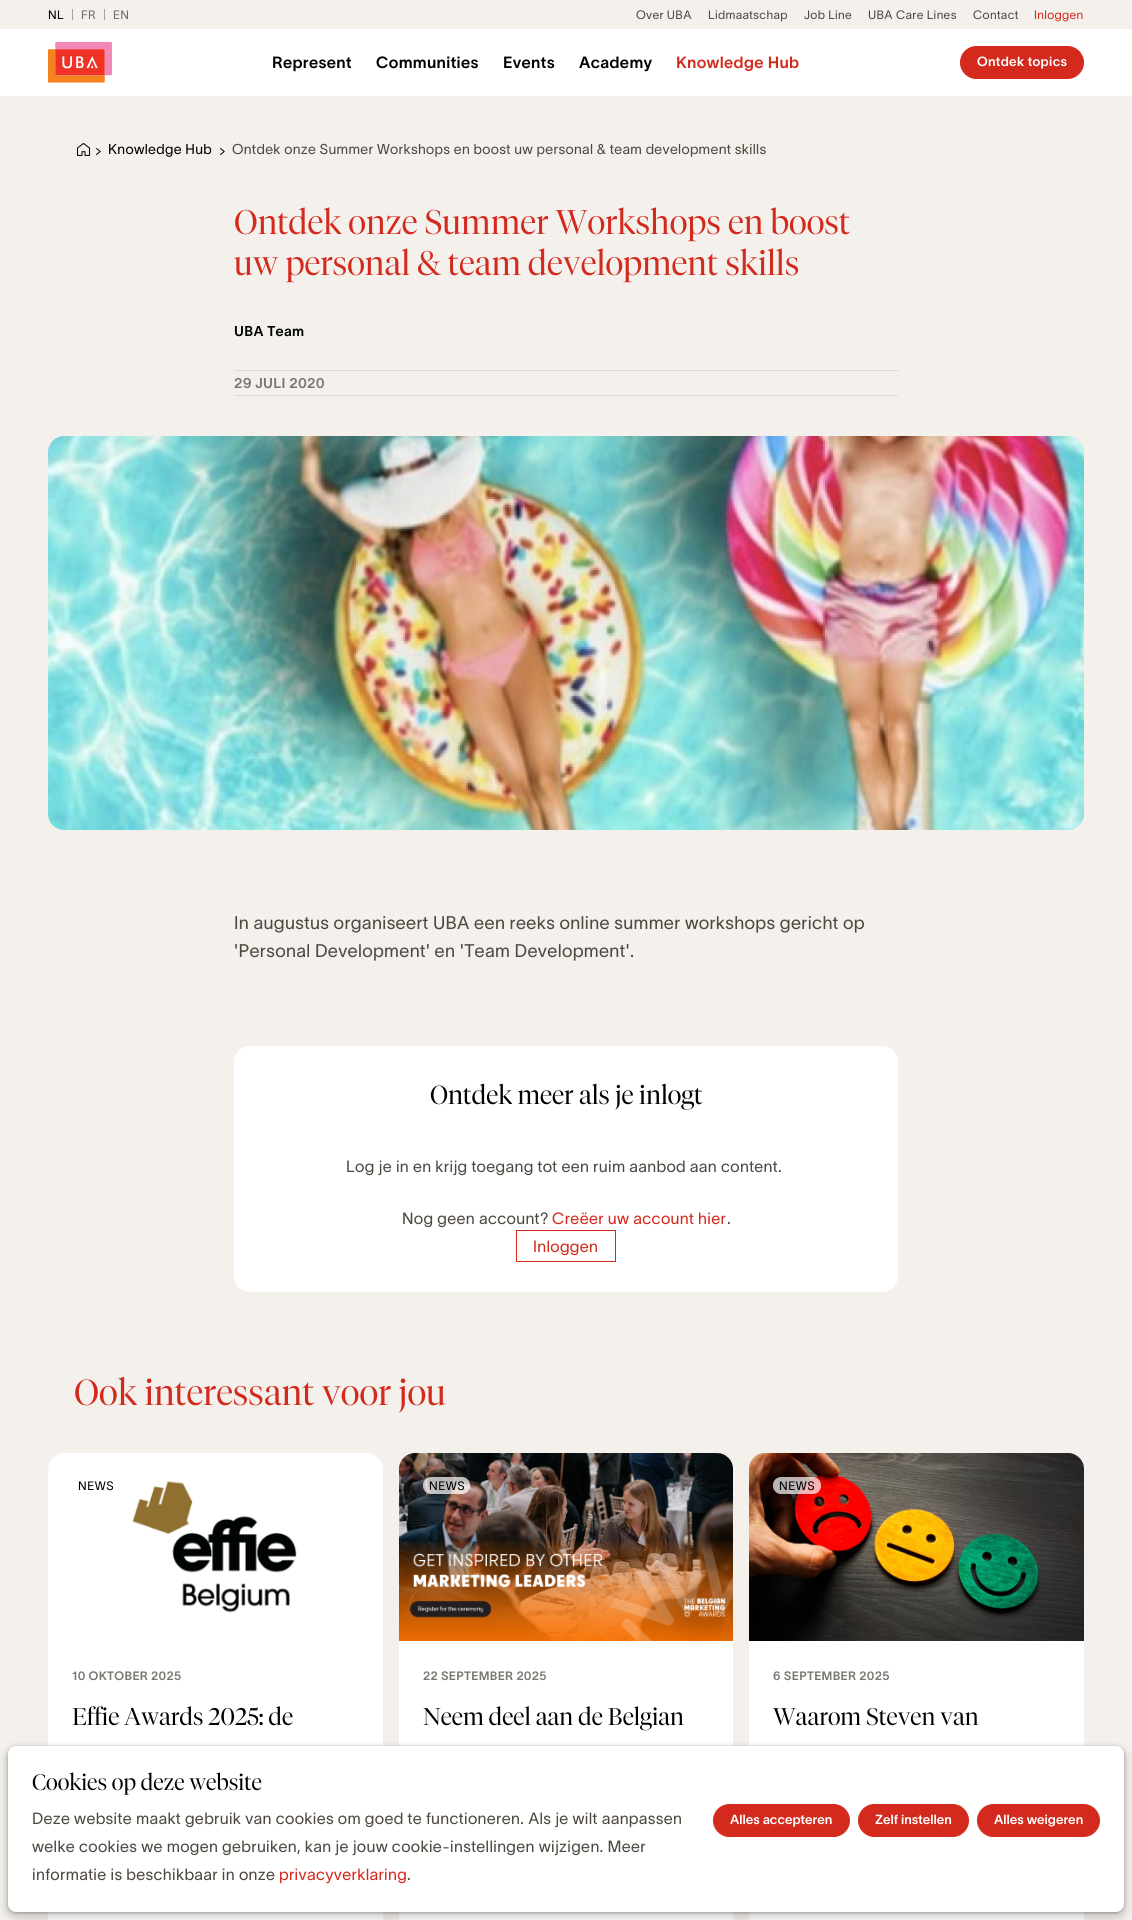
#include <cairo.h>
#include <math.h>
#include <stddef.h>


static void spaced_text(cairo_t *cr, double x, double y, const char *s, double letter, double word) {
    cairo_move_to(cr, x, y);
    while (*s) {
        char ch[5] = {0};
        int n = 0;
        do ch[n++] = *s++; while ((*s & 0xC0) == 0x80);
        cairo_show_text(cr, ch);
        cairo_rel_move_to(cr, letter + word * (*ch == ' '), 0);
    }
}

static void round_rect(cairo_t *cr, double x, double y, double w, double h, double r) {
    cairo_new_sub_path(cr);
    cairo_arc(cr, x + w - r, y + h - r, r, 0, M_PI / 2);
    cairo_arc(cr, x + r, y + h - r, r, M_PI / 2, M_PI);
    cairo_arc(cr, x + r, y + r, r, M_PI, 1.5 * M_PI);
    cairo_arc(cr, x + w - r, y + r, r, 1.5 * M_PI, 2 * M_PI);
    cairo_close_path(cr);
}

static void shadow(cairo_t *cr, double x, double y, double w, double h, double r, double blur, double alpha) {
    cairo_push_group_with_content(cr, CAIRO_CONTENT_ALPHA);
    cairo_set_operator(cr, CAIRO_OPERATOR_SOURCE);
    for (int i = 15; i >= -15 && fmin(w, h) + blur * i / 3 > 0; i -= 2) {
        double e = blur * i / 6;
        cairo_set_source_rgba(cr, 0, 0, 0, alpha * erfc((i - 1) / 8.5) / 2);
        round_rect(cr, x - e, y - e, w + 2 * e, h + 2 * e, fmax(0, fmin(r + e + blur * .6, fmin(w, h) / 2 + e)));
        cairo_fill(cr);
    }
    cairo_pattern_t *soft = cairo_pop_group(cr);
    cairo_mask(cr, soft);
    cairo_pattern_destroy(soft);
}

static void picture(cairo_t *cr, const char *path, double x, double y, double w, double h) {
    cairo_surface_t *image = cairo_image_surface_create_from_png(path);
    cairo_save(cr);
    cairo_set_source_surface(cr, image, x, y);
    cairo_rectangle(cr, x, y, w, h);
    cairo_fill(cr);
    cairo_restore(cr);
    cairo_surface_destroy(image);
}

int main(void) {
    cairo_surface_t *surface = cairo_image_surface_create(CAIRO_FORMAT_RGB24, 1132, 1920);
    cairo_t *cr = cairo_create(surface);
    cairo_font_options_t *options = cairo_font_options_create();
    cairo_font_options_set_hint_metrics(options, CAIRO_HINT_METRICS_OFF);
    cairo_font_options_set_hint_style(options, CAIRO_HINT_STYLE_NONE);
    cairo_set_font_options(cr, options);
    cairo_set_miter_limit(cr, 4);
    cairo_set_source_rgb(cr, 0.957, 0.945, 0.929);
    cairo_paint(cr);
    cairo_select_font_face(cr, "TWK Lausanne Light", CAIRO_FONT_SLANT_NORMAL, CAIRO_FONT_WEIGHT_NORMAL);
    cairo_set_font_size(cr, 12);
    cairo_set_source_rgb(cr, 0, 0, 0);
    spaced_text(cr, 48, 19, "NL", 0.32, 0);
    cairo_set_source_rgb(cr, 0.647, 0.639, 0.624);
    cairo_rectangle(cr, 72, 9, 1, 11);
    cairo_fill(cr);
    cairo_set_source_rgb(cr, 0.443, 0.431, 0.412);
    spaced_text(cr, 81, 19, "FR", 0.32, 0);
    cairo_set_source_rgb(cr, 0.647, 0.639, 0.624);
    cairo_rectangle(cr, 104, 9, 1, 11);
    cairo_fill(cr);
    cairo_set_source_rgb(cr, 0.443, 0.431, 0.412);
    spaced_text(cr, 113, 19, "EN", 0.32, 0);
    cairo_set_source_rgb(cr, 0.302, 0.286, 0.255);
    spaced_text(cr, 636, 19, "Over UBA", 0.32, 0);
    spaced_text(cr, 708, 19, "Lidmaatschap", 0.32, 0);
    spaced_text(cr, 804, 19, "Job Line", 0.32, 0);
    spaced_text(cr, 868, 19, "UBA Care Lines", 0.32, 0);
    spaced_text(cr, 973, 19, "Contact", 0.32, 0);
    cairo_set_source_rgb(cr, 0.827, 0.165, 0.114);
    spaced_text(cr, 1034, 19, "Inloggen", 0.32, 0);
    cairo_set_source_rgb(cr, 1, 1, 1);
    cairo_rectangle(cr, 0, 29, 1132, 67);
    cairo_fill(cr);
    picture(cr, "img1.png", 48, 42, 64, 41);
    cairo_select_font_face(cr, "TWK Lausanne SemiBold", CAIRO_FONT_SLANT_NORMAL, CAIRO_FONT_WEIGHT_NORMAL);
    cairo_set_font_size(cr, 16);
    cairo_set_source_rgb(cr, 0, 0, 0);
    spaced_text(cr, 272, 68, "Represent", 0.32, 0);
    spaced_text(cr, 376, 68, "Communities", 0.32, 0);
    spaced_text(cr, 503, 68, "Events", 0.32, 0);
    spaced_text(cr, 579, 68, "Academy", 0.32, 0);
    cairo_set_source_rgb(cr, 0.827, 0.165, 0.114);
    spaced_text(cr, 676, 68, "Knowledge Hub", 0.32, 0);
    round_rect(cr, 960.5, 46.5, 123, 32, 16);
    cairo_fill_preserve(cr);
    cairo_set_line_width(cr, 1);
    cairo_stroke(cr);
    cairo_set_font_size(cr, 13);
    cairo_set_source_rgb(cr, 1, 1, 1);
    spaced_text(cr, 977, 66, "Ontdek topics", 0.32, 0);
    picture(cr, "img2.png", 77, 143, 13, 13);
    picture(cr, "img3.png", 96, 148, 5, 7);
    cairo_select_font_face(cr, "TWK Lausanne Light", CAIRO_FONT_SLANT_NORMAL, CAIRO_FONT_WEIGHT_NORMAL);
    cairo_set_font_size(cr, 14);
    cairo_set_source_rgb(cr, 0, 0, 0);
    spaced_text(cr, 108, 154, "Knowledge Hub", 0.32, 0);
    picture(cr, "img3.png", 220, 148, 5, 7);
    cairo_set_source_rgb(cr, 0.302, 0.286, 0.255);
    spaced_text(cr, 232, 154, "Ontdek onze Summer Workshops en boost uw personal & team development skills", 0.32, 0);
    cairo_select_font_face(cr, "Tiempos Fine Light", CAIRO_FONT_SLANT_NORMAL, CAIRO_FONT_WEIGHT_NORMAL);
    cairo_set_font_size(cr, 34);
    cairo_set_source_rgb(cr, 0.827, 0.165, 0.114);
    cairo_move_to(cr, 234, 234);
    cairo_show_text(cr, "Ontdek onze Summer Workshops en boost");
    cairo_move_to(cr, 234, 275);
    cairo_show_text(cr, "uw personal & team development skills");
    cairo_select_font_face(cr, "TWK Lausanne SemiBold", CAIRO_FONT_SLANT_NORMAL, CAIRO_FONT_WEIGHT_NORMAL);
    cairo_set_font_size(cr, 14);
    cairo_set_source_rgb(cr, 0, 0, 0);
    spaced_text(cr, 234, 336, "UBA Team", 0.32, 0);
    cairo_set_source_rgb(cr, 0.859, 0.855, 0.851);
    cairo_rectangle(cr, 234, 370, 664, 1);
    cairo_fill(cr);
    cairo_rectangle(cr, 234, 395, 664, 1);
    cairo_fill(cr);
    cairo_set_source_rgb(cr, 0.475, 0.463, 0.439);
    spaced_text(cr, 234, 388, "29 JULI 2020", 0.32, 0);
    picture(cr, "img4.png", 48, 436, 1036, 394);
    cairo_select_font_face(cr, "TWK Lausanne Light", CAIRO_FONT_SLANT_NORMAL, CAIRO_FONT_WEIGHT_NORMAL);
    cairo_set_font_size(cr, 18);
    cairo_set_source_rgb(cr, 0.302, 0.286, 0.255);
    spaced_text(cr, 234, 929, "In augustus organiseert UBA een reeks online summer workshops gericht op", 0.32, 0);
    spaced_text(cr, 234, 957, "'Personal Development' en 'Team Development'.", 0.32, 0);
    cairo_set_source_rgb(cr, 1, 1, 1);
    round_rect(cr, 234, 1046, 664, 246, 16);
    cairo_fill(cr);
    cairo_select_font_face(cr, "Tiempos Fine Light", CAIRO_FONT_SLANT_NORMAL, CAIRO_FONT_WEIGHT_NORMAL);
    cairo_set_font_size(cr, 26);
    cairo_set_source_rgb(cr, 0, 0, 0);
    cairo_move_to(cr, 430, 1104);
    cairo_show_text(cr, "Ontdek meer als je inlogt");
    cairo_select_font_face(cr, "TWK Lausanne Light", CAIRO_FONT_SLANT_NORMAL, CAIRO_FONT_WEIGHT_NORMAL);
    cairo_set_font_size(cr, 16);
    cairo_set_source_rgb(cr, 0.302, 0.286, 0.255);
    spaced_text(cr, 346, 1172, "Log je in en krijg toegang tot een ruim aanbod aan content.", 0.32, 0);
    spaced_text(cr, 402, 1224, "Nog geen account?", 0.32, 0);
    cairo_set_source_rgb(cr, 0.827, 0.165, 0.114);
    spaced_text(cr, 552, 1224, "Creëer uw account hier", 0.32, 0);
    cairo_set_source_rgb(cr, 0.302, 0.286, 0.255);
    spaced_text(cr, 727, 1224, ".", 0.32, 0);
    cairo_rectangle(cr, 516.5, 1230.5, 99, 31);
    cairo_set_source_rgb(cr, 0.827, 0.165, 0.114);
    cairo_stroke(cr);
    spaced_text(cr, 533, 1252, "Inloggen", 0.32, 0);
    cairo_select_font_face(cr, "Tiempos Fine Light", CAIRO_FONT_SLANT_NORMAL, CAIRO_FONT_WEIGHT_NORMAL);
    cairo_set_font_size(cr, 36);
    cairo_move_to(cr, 74, 1405);
    cairo_show_text(cr, "Ook interessant voor jou");
    cairo_set_source_rgb(cr, 1, 1, 1);
    round_rect(cr, 48, 1453, 335, 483, 16);
    cairo_fill(cr);
    cairo_set_source_rgb(cr, 0.859, 0.855, 0.851);
    cairo_new_path(cr);
    cairo_move_to(cr, 64, 1453);
    cairo_line_to(cr, 367, 1453);
    cairo_curve_to(cr, 376, 1453, 383, 1460, 383, 1469);
    cairo_line_to(cr, 383, 1641);
    cairo_line_to(cr, 48, 1641);
    cairo_line_to(cr, 48, 1469);
    cairo_curve_to(cr, 48, 1460, 55, 1453, 64, 1453);
    cairo_close_path(cr);
    cairo_fill(cr);
    picture(cr, "img5.png", 48, 1453, 335, 188);
    cairo_select_font_face(cr, "TWK Lausanne Light", CAIRO_FONT_SLANT_NORMAL, CAIRO_FONT_WEIGHT_NORMAL);
    cairo_set_font_size(cr, 12);
    cairo_set_source_rgb(cr, 0, 0, 0);
    spaced_text(cr, 78, 1490, "NEWS", 0.5, 0);
    cairo_select_font_face(cr, "TWK Lausanne SemiBold", CAIRO_FONT_SLANT_NORMAL, CAIRO_FONT_WEIGHT_NORMAL);
    cairo_set_source_rgb(cr, 0.475, 0.463, 0.439);
    spaced_text(cr, 72, 1680, "10 OKTOBER 2025", 0.32, 0);
    cairo_select_font_face(cr, "Tiempos Fine Light", CAIRO_FONT_SLANT_NORMAL, CAIRO_FONT_WEIGHT_NORMAL);
    cairo_set_font_size(cr, 24);
    cairo_set_source_rgb(cr, 0, 0, 0);
    cairo_move_to(cr, 72, 1725);
    cairo_show_text(cr, "Effie Awards 2025: de");
    cairo_set_source_rgb(cr, 1, 1, 1);
    round_rect(cr, 399, 1453, 334, 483, 16);
    cairo_fill(cr);
    cairo_set_source_rgb(cr, 0.859, 0.855, 0.851);
    cairo_new_path(cr);
    cairo_move_to(cr, 415, 1453);
    cairo_line_to(cr, 717, 1453);
    cairo_curve_to(cr, 726, 1453, 733, 1460, 733, 1469);
    cairo_line_to(cr, 733, 1641);
    cairo_line_to(cr, 399, 1641);
    cairo_line_to(cr, 399, 1469);
    cairo_curve_to(cr, 399, 1460, 406, 1453, 415, 1453);
    cairo_close_path(cr);
    cairo_fill(cr);
    picture(cr, "img6.png", 399, 1453, 334, 188);
    cairo_set_source_rgba(cr, 1, 1, 1, 0.7);
    round_rect(cr, 423, 1477, 47, 17, 8);
    cairo_fill(cr);
    cairo_select_font_face(cr, "TWK Lausanne Light", CAIRO_FONT_SLANT_NORMAL, CAIRO_FONT_WEIGHT_NORMAL);
    cairo_set_font_size(cr, 12);
    cairo_set_source_rgb(cr, 0, 0, 0);
    spaced_text(cr, 429, 1490, "NEWS", 0.5, 0);
    cairo_select_font_face(cr, "TWK Lausanne SemiBold", CAIRO_FONT_SLANT_NORMAL, CAIRO_FONT_WEIGHT_NORMAL);
    cairo_set_source_rgb(cr, 0.475, 0.463, 0.439);
    spaced_text(cr, 423, 1680, "22 SEPTEMBER 2025", 0.32, 0);
    cairo_select_font_face(cr, "Tiempos Fine Light", CAIRO_FONT_SLANT_NORMAL, CAIRO_FONT_WEIGHT_NORMAL);
    cairo_set_font_size(cr, 24);
    cairo_set_source_rgb(cr, 0, 0, 0);
    cairo_move_to(cr, 423, 1725);
    cairo_show_text(cr, "Neem deel aan de Belgian");
    cairo_set_source_rgb(cr, 1, 1, 1);
    round_rect(cr, 749, 1453, 335, 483, 16);
    cairo_fill(cr);
    cairo_set_source_rgb(cr, 0.859, 0.855, 0.851);
    cairo_new_path(cr);
    cairo_move_to(cr, 765, 1453);
    cairo_line_to(cr, 1068, 1453);
    cairo_curve_to(cr, 1077, 1453, 1084, 1460, 1084, 1469);
    cairo_line_to(cr, 1084, 1641);
    cairo_line_to(cr, 749, 1641);
    cairo_line_to(cr, 749, 1469);
    cairo_curve_to(cr, 749, 1460, 756, 1453, 765, 1453);
    cairo_close_path(cr);
    cairo_fill(cr);
    picture(cr, "img7.png", 749, 1453, 335, 188);
    cairo_set_source_rgba(cr, 1, 1, 1, 0.7);
    round_rect(cr, 773, 1477, 48, 17, 8);
    cairo_fill(cr);
    cairo_select_font_face(cr, "TWK Lausanne Light", CAIRO_FONT_SLANT_NORMAL, CAIRO_FONT_WEIGHT_NORMAL);
    cairo_set_font_size(cr, 12);
    cairo_set_source_rgb(cr, 0, 0, 0);
    spaced_text(cr, 779, 1490, "NEWS", 0.5, 0);
    cairo_select_font_face(cr, "TWK Lausanne SemiBold", CAIRO_FONT_SLANT_NORMAL, CAIRO_FONT_WEIGHT_NORMAL);
    cairo_set_source_rgb(cr, 0.475, 0.463, 0.439);
    spaced_text(cr, 773, 1680, "6 SEPTEMBER 2025", 0.32, 0);
    cairo_select_font_face(cr, "Tiempos Fine Light", CAIRO_FONT_SLANT_NORMAL, CAIRO_FONT_WEIGHT_NORMAL);
    cairo_set_font_size(cr, 24);
    cairo_set_source_rgb(cr, 0, 0, 0);
    cairo_move_to(cr, 773, 1725);
    cairo_show_text(cr, "Waarom Steven van");
    cairo_set_source_rgb(cr, 0, 0, 0);
    shadow(cr, 8, 1747, 1116, 166, 8, 1.5, 0.3);
    shadow(cr, 5, 1747, 1122, 172, 11, 4, 0.15);
    cairo_set_source_rgb(cr, 1, 1, 1);
    round_rect(cr, 8, 1746, 1116, 166, 8);
    cairo_fill(cr);
    cairo_set_font_size(cr, 22.4);
    cairo_set_source_rgb(cr, 0, 0, 0);
    cairo_move_to(cr, 32, 1790);
    cairo_show_text(cr, "Cookies op deze website");
    cairo_select_font_face(cr, "TWK Lausanne Light", CAIRO_FONT_SLANT_NORMAL, CAIRO_FONT_WEIGHT_NORMAL);
    cairo_set_font_size(cr, 16);
    cairo_set_source_rgb(cr, 0.302, 0.286, 0.255);
    spaced_text(cr, 32, 1824, "Deze website maakt gebruik van cookies om goed te functioneren. Als je wilt aanpassen", 0.32, 0);
    spaced_text(cr, 32, 1852, "welke cookies we mogen gebruiken, kan je jouw cookie-instellingen wijzigen. Meer", 0.32, 0);
    spaced_text(cr, 32, 1880, "informatie is beschikbaar in onze", 0.32, 0);
    cairo_set_source_rgb(cr, 0.827, 0.165, 0.114);
    spaced_text(cr, 279, 1880, "privacyverklaring", 0.32, 0);
    cairo_set_source_rgb(cr, 0.302, 0.286, 0.255);
    spaced_text(cr, 407, 1880, ".", 0.32, 0);
    cairo_set_source_rgb(cr, 0.827, 0.165, 0.114);
    round_rect(cr, 713.5, 1804.5, 136, 32, 16);
    cairo_fill_preserve(cr);
    cairo_stroke(cr);
    cairo_select_font_face(cr, "TWK Lausanne SemiBold", CAIRO_FONT_SLANT_NORMAL, CAIRO_FONT_WEIGHT_NORMAL);
    cairo_set_font_size(cr, 13);
    cairo_set_source_rgb(cr, 1, 1, 1);
    cairo_move_to(cr, 730, 1824);
    cairo_show_text(cr, "Alles accepteren");
    cairo_set_source_rgb(cr, 0.827, 0.165, 0.114);
    round_rect(cr, 858.5, 1804.5, 110, 32, 16);
    cairo_fill_preserve(cr);
    cairo_stroke(cr);
    cairo_set_source_rgb(cr, 1, 1, 1);
    cairo_move_to(cr, 875, 1824);
    cairo_show_text(cr, "Zelf instellen");
    cairo_set_source_rgb(cr, 0.827, 0.165, 0.114);
    round_rect(cr, 977.5, 1804.5, 122, 32, 16);
    cairo_fill_preserve(cr);
    cairo_stroke(cr);
    cairo_set_source_rgb(cr, 1, 1, 1);
    cairo_move_to(cr, 994, 1824);
    cairo_show_text(cr, "Alles weigeren");
    cairo_surface_write_to_png(surface, "page.png");
    cairo_font_options_destroy(options);
    cairo_destroy(cr);
    cairo_surface_destroy(surface);
    return 0;
}
